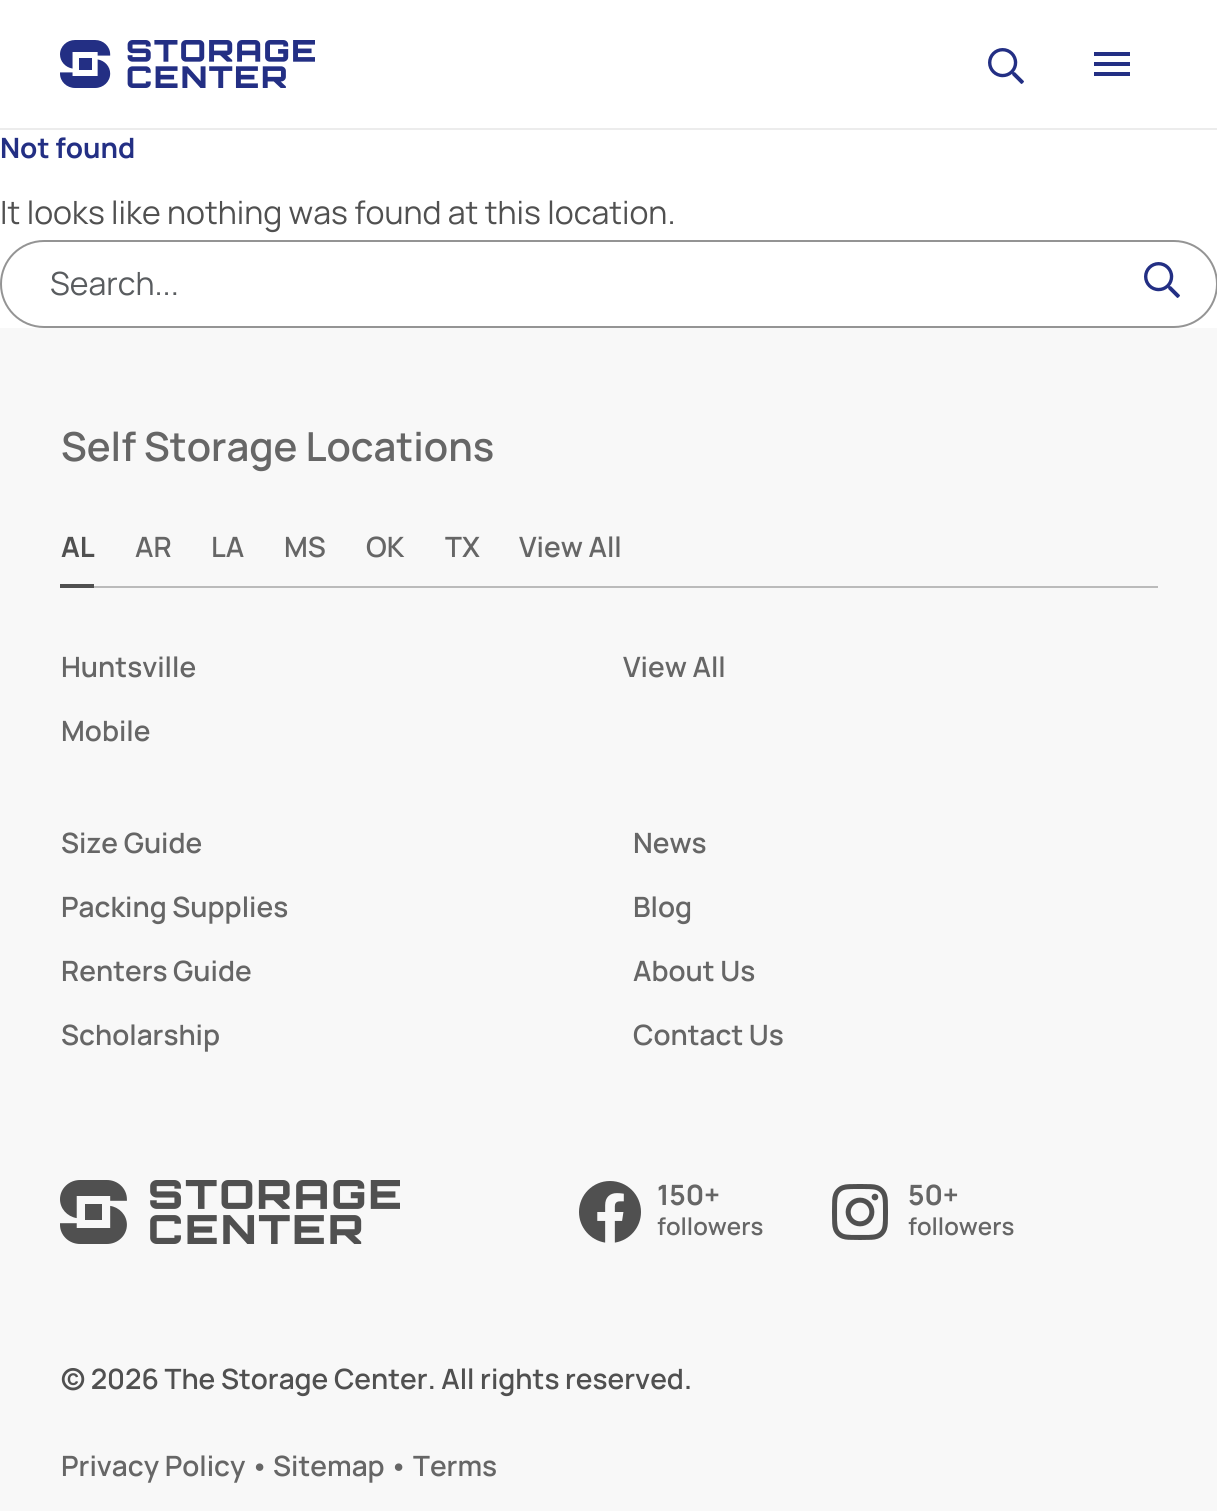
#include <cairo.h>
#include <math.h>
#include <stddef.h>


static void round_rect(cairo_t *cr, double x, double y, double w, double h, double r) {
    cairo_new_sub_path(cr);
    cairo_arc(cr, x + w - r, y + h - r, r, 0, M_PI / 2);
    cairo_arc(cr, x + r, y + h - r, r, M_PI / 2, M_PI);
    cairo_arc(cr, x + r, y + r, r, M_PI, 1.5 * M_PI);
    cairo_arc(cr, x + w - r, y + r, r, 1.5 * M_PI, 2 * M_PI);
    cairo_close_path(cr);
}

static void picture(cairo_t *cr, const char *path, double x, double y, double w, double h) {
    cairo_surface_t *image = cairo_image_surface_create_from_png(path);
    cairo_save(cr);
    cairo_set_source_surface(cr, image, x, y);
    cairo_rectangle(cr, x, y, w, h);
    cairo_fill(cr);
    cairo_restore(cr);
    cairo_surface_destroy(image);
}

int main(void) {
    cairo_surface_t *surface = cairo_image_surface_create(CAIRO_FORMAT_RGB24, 1217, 1511);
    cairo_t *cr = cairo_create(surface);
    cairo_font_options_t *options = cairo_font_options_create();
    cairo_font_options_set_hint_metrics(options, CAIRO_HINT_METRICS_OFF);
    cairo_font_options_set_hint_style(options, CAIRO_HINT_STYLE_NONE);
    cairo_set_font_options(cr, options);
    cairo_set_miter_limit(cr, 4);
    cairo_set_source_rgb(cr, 1, 1, 1);
    cairo_paint(cr);
    cairo_set_source_rgb(cr, 0.922, 0.922, 0.922);
    cairo_rectangle(cr, 0, 128, 1217, 2);
    cairo_fill(cr);
    picture(cr, "img1.png", 60, 40, 255, 48);
    picture(cr, "img2.png", 988, 48, 36, 36);
    cairo_set_source_rgb(cr, 0.137, 0.184, 0.518);
    cairo_rectangle(cr, 1094, 52, 36, 4);
    cairo_fill(cr);
    cairo_rectangle(cr, 1094, 62, 36, 4);
    cairo_fill(cr);
    cairo_rectangle(cr, 1094, 72, 36, 4);
    cairo_fill(cr);
    cairo_select_font_face(cr, "Manrope", CAIRO_FONT_SLANT_NORMAL, CAIRO_FONT_WEIGHT_BOLD);
    cairo_set_font_size(cr, 28);
    cairo_move_to(cr, 0, 158);
    cairo_show_text(cr, "Not found");
    cairo_select_font_face(cr, "Manrope", CAIRO_FONT_SLANT_NORMAL, CAIRO_FONT_WEIGHT_NORMAL);
    cairo_set_font_size(cr, 32);
    cairo_set_source_rgb(cr, 0.314, 0.314, 0.314);
    cairo_move_to(cr, 0, 224);
    cairo_show_text(cr, "It looks like nothing was found at this location.");
    round_rect(cr, 1, 241, 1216, 86, 43);
    cairo_set_source_rgb(cr, 0.58, 0.58, 0.58);
    cairo_stroke(cr);
    cairo_set_source_rgb(cr, 0.349, 0.361, 0.373);
    cairo_move_to(cr, 50, 295);
    cairo_show_text(cr, "Search...");
    picture(cr, "img2.png", 1144, 262, 36, 36);
    cairo_set_source_rgb(cr, 0.969, 0.969, 0.969);
    cairo_rectangle(cr, 0, 328, 1217, 1183);
    cairo_fill(cr);
    cairo_select_font_face(cr, "Manrope SemiBold", CAIRO_FONT_SLANT_NORMAL, CAIRO_FONT_WEIGHT_NORMAL);
    cairo_set_font_size(cr, 40);
    cairo_set_source_rgb(cr, 0.4, 0.4, 0.4);
    cairo_move_to(cr, 61, 461);
    cairo_show_text(cr, "Self Storage Locations");
    cairo_set_source_rgb(cr, 0.733, 0.733, 0.733);
    cairo_rectangle(cr, 94, 586, 1064, 2);
    cairo_fill(cr);
    cairo_set_source_rgb(cr, 0.314, 0.314, 0.314);
    cairo_rectangle(cr, 60, 584, 34, 4);
    cairo_fill(cr);
    cairo_select_font_face(cr, "Manrope", CAIRO_FONT_SLANT_NORMAL, CAIRO_FONT_WEIGHT_BOLD);
    cairo_set_font_size(cr, 28);
    cairo_move_to(cr, 61, 557);
    cairo_show_text(cr, "AL");
    cairo_select_font_face(cr, "Manrope SemiBold", CAIRO_FONT_SLANT_NORMAL, CAIRO_FONT_WEIGHT_NORMAL);
    cairo_set_source_rgb(cr, 0.4, 0.4, 0.4);
    cairo_move_to(cr, 135, 557);
    cairo_show_text(cr, "AR");
    cairo_move_to(cr, 211, 557);
    cairo_show_text(cr, "LA");
    cairo_move_to(cr, 284, 557);
    cairo_show_text(cr, "MS");
    cairo_move_to(cr, 366, 557);
    cairo_show_text(cr, "OK");
    cairo_move_to(cr, 445, 557);
    cairo_show_text(cr, "TX");
    cairo_move_to(cr, 519, 557);
    cairo_show_text(cr, "View All");
    cairo_move_to(cr, 61, 677);
    cairo_show_text(cr, "Huntsville");
    cairo_move_to(cr, 623, 677);
    cairo_show_text(cr, "View All");
    cairo_move_to(cr, 61, 741);
    cairo_show_text(cr, "Mobile");
    cairo_move_to(cr, 61, 853);
    cairo_show_text(cr, "Size Guide");
    cairo_move_to(cr, 61, 917);
    cairo_show_text(cr, "Packing Supplies");
    cairo_move_to(cr, 61, 981);
    cairo_show_text(cr, "Renters Guide");
    cairo_move_to(cr, 61, 1045);
    cairo_show_text(cr, "Scholarship");
    cairo_move_to(cr, 633, 853);
    cairo_show_text(cr, "News");
    cairo_move_to(cr, 633, 917);
    cairo_show_text(cr, "Blog");
    cairo_move_to(cr, 633, 981);
    cairo_show_text(cr, "About Us");
    cairo_move_to(cr, 633, 1045);
    cairo_show_text(cr, "Contact Us");
    picture(cr, "img3.png", 60, 1180, 340, 64);
    picture(cr, "img4.png", 579, 1181, 62, 62);
    cairo_select_font_face(cr, "Manrope", CAIRO_FONT_SLANT_NORMAL, CAIRO_FONT_WEIGHT_BOLD);
    cairo_move_to(cr, 657, 1205);
    cairo_show_text(cr, "150+");
    cairo_select_font_face(cr, "Manrope SemiBold", CAIRO_FONT_SLANT_NORMAL, CAIRO_FONT_WEIGHT_NORMAL);
    cairo_set_font_size(cr, 24);
    cairo_move_to(cr, 657, 1235);
    cairo_show_text(cr, "followers");
    picture(cr, "img5.png", 832, 1184, 56, 56);
    cairo_select_font_face(cr, "Manrope", CAIRO_FONT_SLANT_NORMAL, CAIRO_FONT_WEIGHT_BOLD);
    cairo_set_font_size(cr, 28);
    cairo_move_to(cr, 908, 1205);
    cairo_show_text(cr, "50+");
    cairo_select_font_face(cr, "Manrope SemiBold", CAIRO_FONT_SLANT_NORMAL, CAIRO_FONT_WEIGHT_NORMAL);
    cairo_set_font_size(cr, 24);
    cairo_move_to(cr, 908, 1235);
    cairo_show_text(cr, "followers");
    cairo_set_font_size(cr, 28);
    cairo_set_source_rgb(cr, 0.314, 0.314, 0.314);
    cairo_move_to(cr, 61, 1389);
    cairo_show_text(cr, "© 2026 The Storage Center. All rights reserved.");
    cairo_set_source_rgb(cr, 0.4, 0.4, 0.4);
    cairo_move_to(cr, 61, 1476);
    cairo_show_text(cr, "Privacy Policy");
    cairo_move_to(cr, 250, 1476);
    cairo_show_text(cr, "•");
    cairo_move_to(cr, 273, 1476);
    cairo_show_text(cr, "Sitemap");
    cairo_move_to(cr, 389, 1476);
    cairo_show_text(cr, "•");
    cairo_move_to(cr, 413, 1476);
    cairo_show_text(cr, "Terms");
    cairo_surface_write_to_png(surface, "page.png");
    cairo_font_options_destroy(options);
    cairo_destroy(cr);
    cairo_surface_destroy(surface);
    return 0;
}
